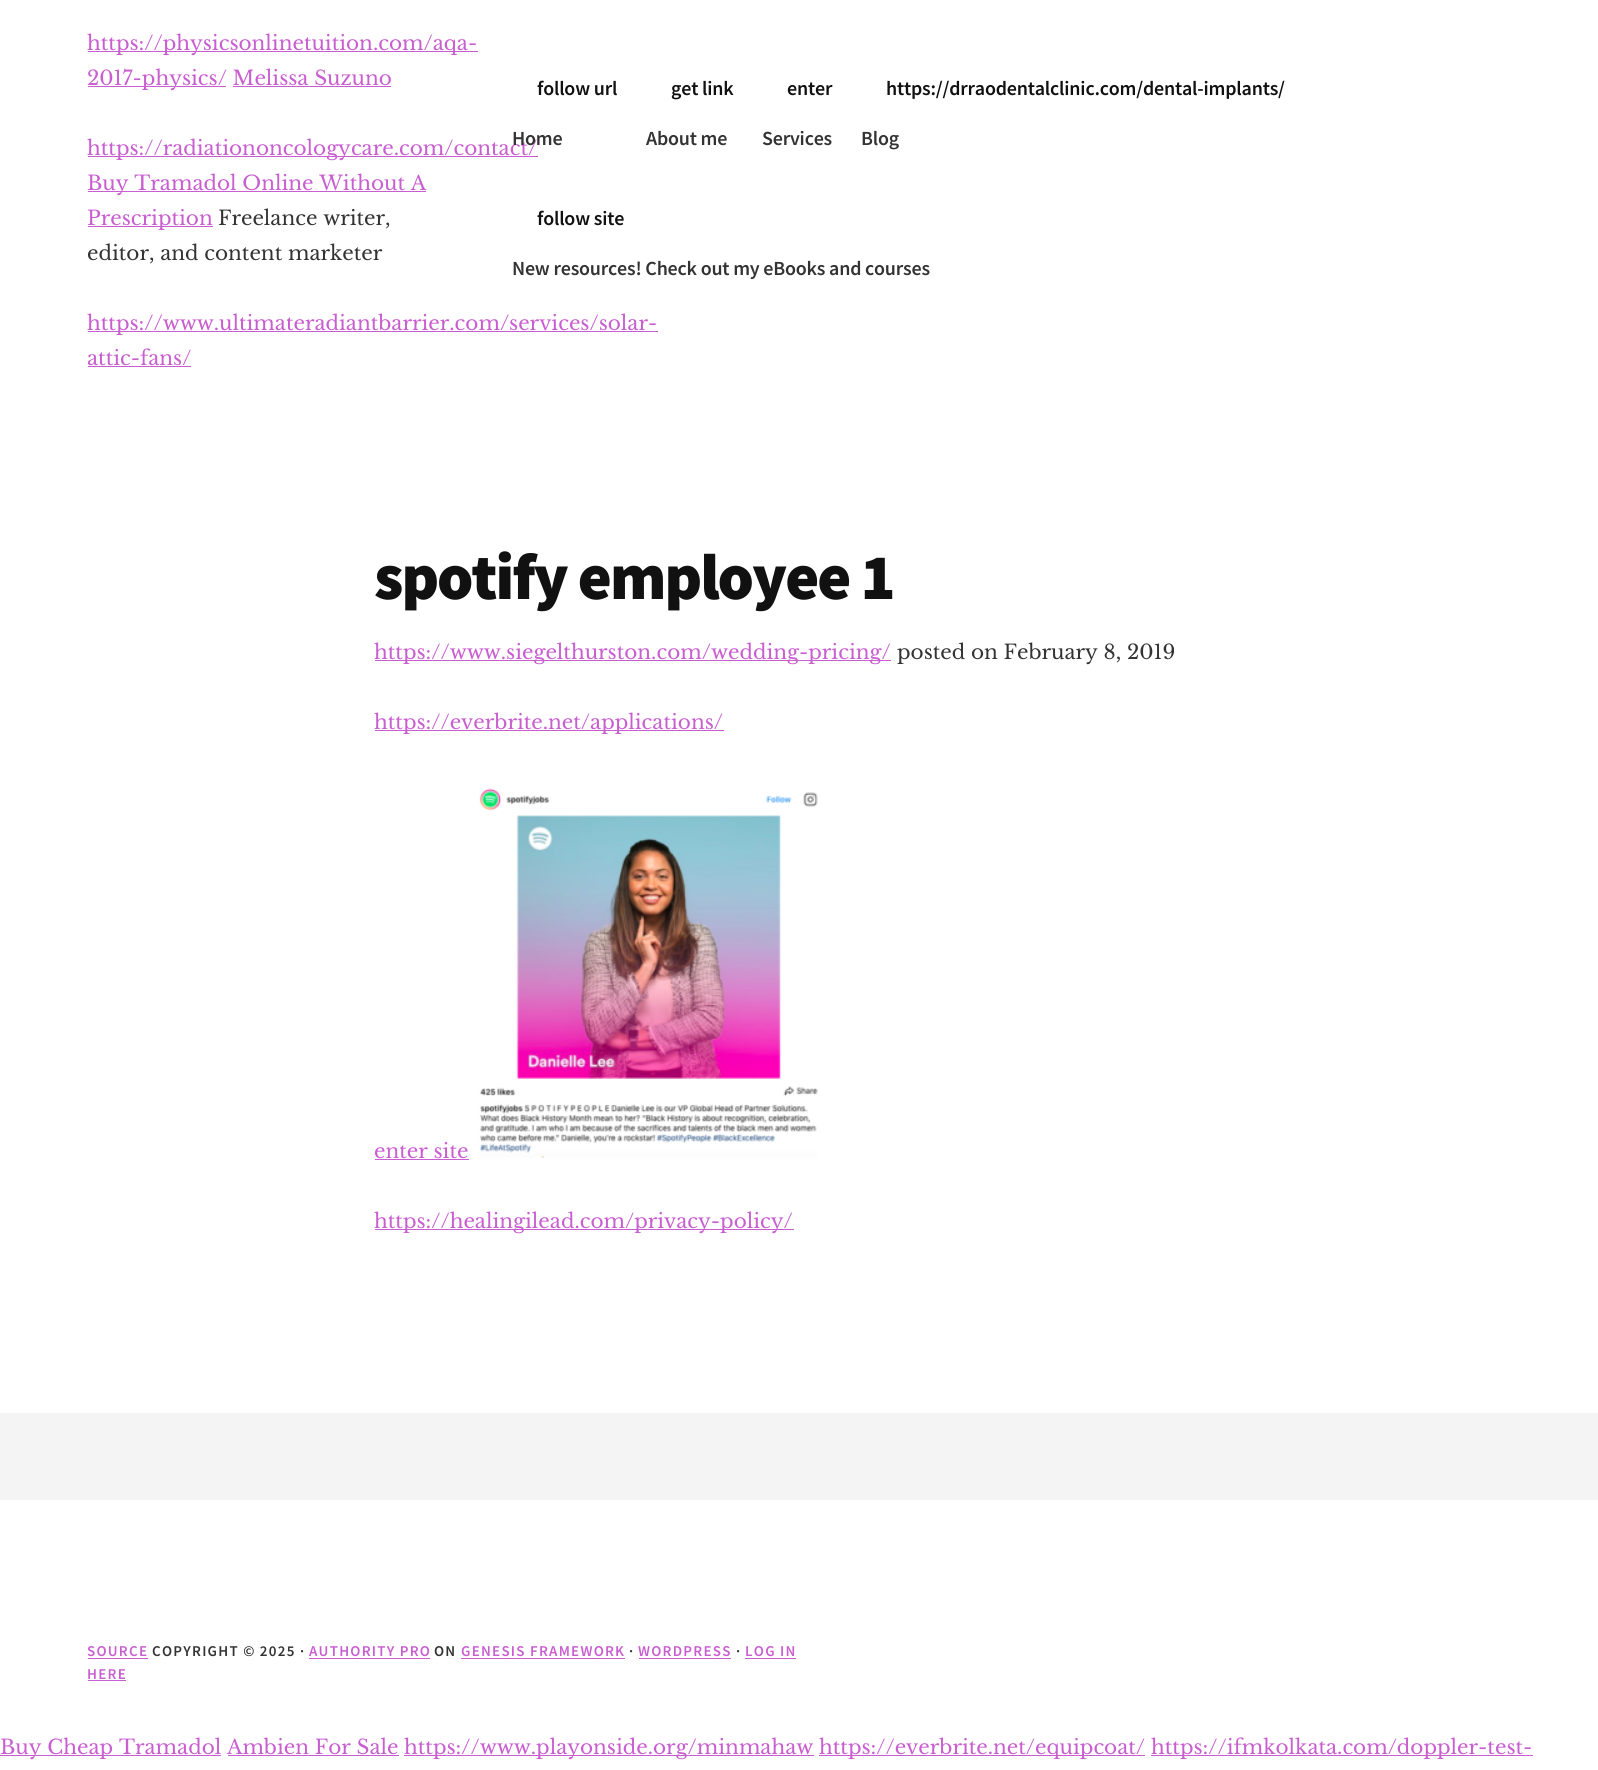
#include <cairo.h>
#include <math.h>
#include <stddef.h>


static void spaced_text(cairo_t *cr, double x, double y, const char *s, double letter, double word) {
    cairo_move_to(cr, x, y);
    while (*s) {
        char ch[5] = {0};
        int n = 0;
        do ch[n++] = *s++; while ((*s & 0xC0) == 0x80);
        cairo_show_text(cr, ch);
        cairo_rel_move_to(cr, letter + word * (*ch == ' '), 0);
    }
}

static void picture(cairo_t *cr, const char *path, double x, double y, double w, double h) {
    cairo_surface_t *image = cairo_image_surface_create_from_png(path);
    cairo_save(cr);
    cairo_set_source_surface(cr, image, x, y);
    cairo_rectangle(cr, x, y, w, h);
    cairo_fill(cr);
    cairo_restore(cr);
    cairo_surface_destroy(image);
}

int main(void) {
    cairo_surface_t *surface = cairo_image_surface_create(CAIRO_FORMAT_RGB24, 1598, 1770);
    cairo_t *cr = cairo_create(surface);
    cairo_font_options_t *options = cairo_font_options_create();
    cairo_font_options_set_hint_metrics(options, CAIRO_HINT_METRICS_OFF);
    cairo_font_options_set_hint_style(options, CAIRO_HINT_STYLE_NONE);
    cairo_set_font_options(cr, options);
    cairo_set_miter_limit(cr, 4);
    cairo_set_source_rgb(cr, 1, 1, 1);
    cairo_paint(cr);
    cairo_set_source_rgb(cr, 0.788, 0.369, 0.82);
    cairo_rectangle(cr, 88, 51, 390, 1);
    cairo_fill(cr);
    cairo_select_font_face(cr, "Libre Baskerville", CAIRO_FONT_SLANT_NORMAL, CAIRO_FONT_WEIGHT_NORMAL);
    cairo_set_font_size(cr, 20);
    cairo_move_to(cr, 87, 50);
    cairo_show_text(cr, "https://physicsonlinetuition.com/aqa-");
    cairo_rectangle(cr, 88, 86, 138, 1);
    cairo_fill(cr);
    cairo_move_to(cr, 87, 85);
    cairo_show_text(cr, "2017-physics/ Melissa Suzuno");
    cairo_rectangle(cr, 233, 86, 158, 1);
    cairo_fill(cr);
    cairo_rectangle(cr, 88, 156, 450, 1);
    cairo_fill(cr);
    cairo_move_to(cr, 87, 155);
    cairo_show_text(cr, "https://radiationoncologycare.com/contact/");
    cairo_rectangle(cr, 88, 191, 338, 1);
    cairo_fill(cr);
    cairo_move_to(cr, 87, 190);
    cairo_show_text(cr, "Buy Tramadol Online Without A");
    cairo_rectangle(cr, 88, 226, 125, 1);
    cairo_fill(cr);
    cairo_move_to(cr, 87, 225);
    cairo_show_text(cr, "Prescription");
    cairo_set_source_rgb(cr, 0.2, 0.2, 0.2);
    cairo_move_to(cr, 218, 225);
    cairo_show_text(cr, "Freelance writer,");
    cairo_move_to(cr, 87, 260);
    cairo_show_text(cr, "editor, and content marketer");
    cairo_set_source_rgb(cr, 0.788, 0.369, 0.82);
    cairo_rectangle(cr, 88, 331, 570, 1);
    cairo_fill(cr);
    cairo_move_to(cr, 87, 330);
    cairo_show_text(cr, "https://www.ultimateradiantbarrier.com/services/solar-");
    cairo_move_to(cr, 87, 365);
    cairo_show_text(cr, "attic-fans/");
    cairo_rectangle(cr, 88, 366, 103, 1);
    cairo_fill(cr);
    cairo_select_font_face(cr, "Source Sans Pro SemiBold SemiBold", CAIRO_FONT_SLANT_NORMAL, CAIRO_FONT_WEIGHT_NORMAL);
    cairo_set_source_rgb(cr, 0.067, 0.067, 0.067);
    spaced_text(cr, 537, 95, "follow url", -0.2, 0);
    cairo_set_source_rgb(cr, 0.2, 0.2, 0.2);
    spaced_text(cr, 512, 145, "Home", -0.2, 0);
    cairo_set_source_rgb(cr, 0.067, 0.067, 0.067);
    spaced_text(cr, 671, 95, "get link", -0.2, 0);
    cairo_set_source_rgb(cr, 0.2, 0.2, 0.2);
    spaced_text(cr, 646, 145, "About me", -0.2, 0);
    cairo_set_source_rgb(cr, 0.067, 0.067, 0.067);
    spaced_text(cr, 787, 95, "enter", -0.2, 0);
    cairo_set_source_rgb(cr, 0.2, 0.2, 0.2);
    spaced_text(cr, 762, 145, "Services", -0.2, 0);
    cairo_set_source_rgb(cr, 0.067, 0.067, 0.067);
    spaced_text(cr, 886, 95, "https://drraodentalclinic.com/dental-implants/", -0.2, 0);
    cairo_set_source_rgb(cr, 0.2, 0.2, 0.2);
    spaced_text(cr, 861, 145, "Blog", -0.2, 0);
    cairo_set_source_rgb(cr, 0.067, 0.067, 0.067);
    spaced_text(cr, 537, 225, "follow site", -0.2, 0);
    cairo_set_source_rgb(cr, 0.2, 0.2, 0.2);
    spaced_text(cr, 512, 275, "New resources! Check out my eBooks and courses", -0.2, 0);
    cairo_select_font_face(cr, "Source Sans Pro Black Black", CAIRO_FONT_SLANT_NORMAL, CAIRO_FONT_WEIGHT_NORMAL);
    cairo_set_font_size(cr, 65);
    cairo_set_source_rgb(cr, 0.067, 0.067, 0.067);
    spaced_text(cr, 374, 599, "spotify employee 1", -2, 0);
    cairo_set_source_rgb(cr, 0.788, 0.369, 0.82);
    cairo_rectangle(cr, 375, 660, 516, 1);
    cairo_fill(cr);
    cairo_select_font_face(cr, "Libre Baskerville", CAIRO_FONT_SLANT_NORMAL, CAIRO_FONT_WEIGHT_NORMAL);
    cairo_set_font_size(cr, 20);
    cairo_move_to(cr, 374, 659);
    cairo_show_text(cr, "https://www.siegelthurston.com/wedding-pricing/");
    cairo_set_source_rgb(cr, 0.2, 0.2, 0.2);
    cairo_move_to(cr, 897, 659);
    cairo_show_text(cr, "posted on February 8, 2019");
    cairo_set_source_rgb(cr, 0.788, 0.369, 0.82);
    cairo_rectangle(cr, 375, 730, 349, 1);
    cairo_fill(cr);
    cairo_move_to(cr, 374, 729);
    cairo_show_text(cr, "https://everbrite.net/applications/");
    cairo_move_to(cr, 374, 1158);
    cairo_show_text(cr, "enter site");
    cairo_rectangle(cr, 375, 1159, 94, 1);
    cairo_fill(cr);
    picture(cr, "img1.png", 479, 788, 339, 370);
    cairo_rectangle(cr, 375, 1229, 419, 1);
    cairo_fill(cr);
    cairo_move_to(cr, 374, 1228);
    cairo_show_text(cr, "https://healingilead.com/privacy-policy/");
    cairo_set_source_rgb(cr, 0.957, 0.957, 0.957);
    cairo_rectangle(cr, 0, 1413, 1598, 87);
    cairo_fill(cr);
    cairo_select_font_face(cr, "Source Sans Pro SemiBold SemiBold", CAIRO_FONT_SLANT_NORMAL, CAIRO_FONT_WEIGHT_NORMAL);
    cairo_set_font_size(cr, 15);
    cairo_set_source_rgb(cr, 0.788, 0.369, 0.82);
    spaced_text(cr, 87, 1656, "SOURCE", 1.25, 0);
    cairo_rectangle(cr, 88, 1658, 60, 1);
    cairo_fill(cr);
    cairo_set_source_rgb(cr, 0.2, 0.2, 0.2);
    spaced_text(cr, 152, 1656, "COPYRIGHT © 2025 ·", 1.25, 0);
    cairo_set_source_rgb(cr, 0.788, 0.369, 0.82);
    spaced_text(cr, 309, 1656, "AUTHORITY PRO", 1.25, 0);
    cairo_rectangle(cr, 309, 1658, 121, 1);
    cairo_fill(cr);
    cairo_set_source_rgb(cr, 0.2, 0.2, 0.2);
    spaced_text(cr, 434, 1656, "ON", 1.25, 0);
    cairo_set_source_rgb(cr, 0.788, 0.369, 0.82);
    spaced_text(cr, 461, 1656, "GENESIS FRAMEWORK", 1.25, 0);
    cairo_rectangle(cr, 461, 1658, 164, 1);
    cairo_fill(cr);
    cairo_set_source_rgb(cr, 0.2, 0.2, 0.2);
    spaced_text(cr, 629, 1656, "·", 1.25, 0);
    cairo_set_source_rgb(cr, 0.788, 0.369, 0.82);
    spaced_text(cr, 638, 1656, "WORDPRESS", 1.25, 0);
    cairo_rectangle(cr, 639, 1658, 92, 1);
    cairo_fill(cr);
    cairo_set_source_rgb(cr, 0.2, 0.2, 0.2);
    spaced_text(cr, 736, 1656, "·", 1.25, 0);
    cairo_set_source_rgb(cr, 0.788, 0.369, 0.82);
    spaced_text(cr, 745, 1656, "LOG IN", 1.25, 0);
    cairo_rectangle(cr, 745, 1658, 51, 1);
    cairo_fill(cr);
    spaced_text(cr, 87, 1679, "HERE", 1.25, 0);
    cairo_rectangle(cr, 88, 1680, 38, 1);
    cairo_fill(cr);
    cairo_rectangle(cr, 0, 1755, 221, 1);
    cairo_fill(cr);
    cairo_select_font_face(cr, "Libre Baskerville", CAIRO_FONT_SLANT_NORMAL, CAIRO_FONT_WEIGHT_NORMAL);
    cairo_set_font_size(cr, 20);
    cairo_move_to(cr, 0, 1754);
    cairo_show_text(cr, "Buy Cheap Tramadol Ambien For Sale");
    cairo_rectangle(cr, 404, 1755, 410, 1);
    cairo_fill(cr);
    cairo_move_to(cr, 404, 1754);
    cairo_show_text(cr, "https://www.playonside.org/minmahaw");
    cairo_rectangle(cr, 819, 1755, 326, 1);
    cairo_fill(cr);
    cairo_move_to(cr, 819, 1754);
    cairo_show_text(cr, "https://everbrite.net/equipcoat/");
    cairo_rectangle(cr, 1151, 1755, 382, 1);
    cairo_fill(cr);
    cairo_move_to(cr, 1151, 1754);
    cairo_show_text(cr, "https://ifmkolkata.com/doppler-test-");
    cairo_rectangle(cr, 228, 1755, 171, 1);
    cairo_fill(cr);
    cairo_surface_write_to_png(surface, "page.png");
    cairo_font_options_destroy(options);
    cairo_destroy(cr);
    cairo_surface_destroy(surface);
    return 0;
}
